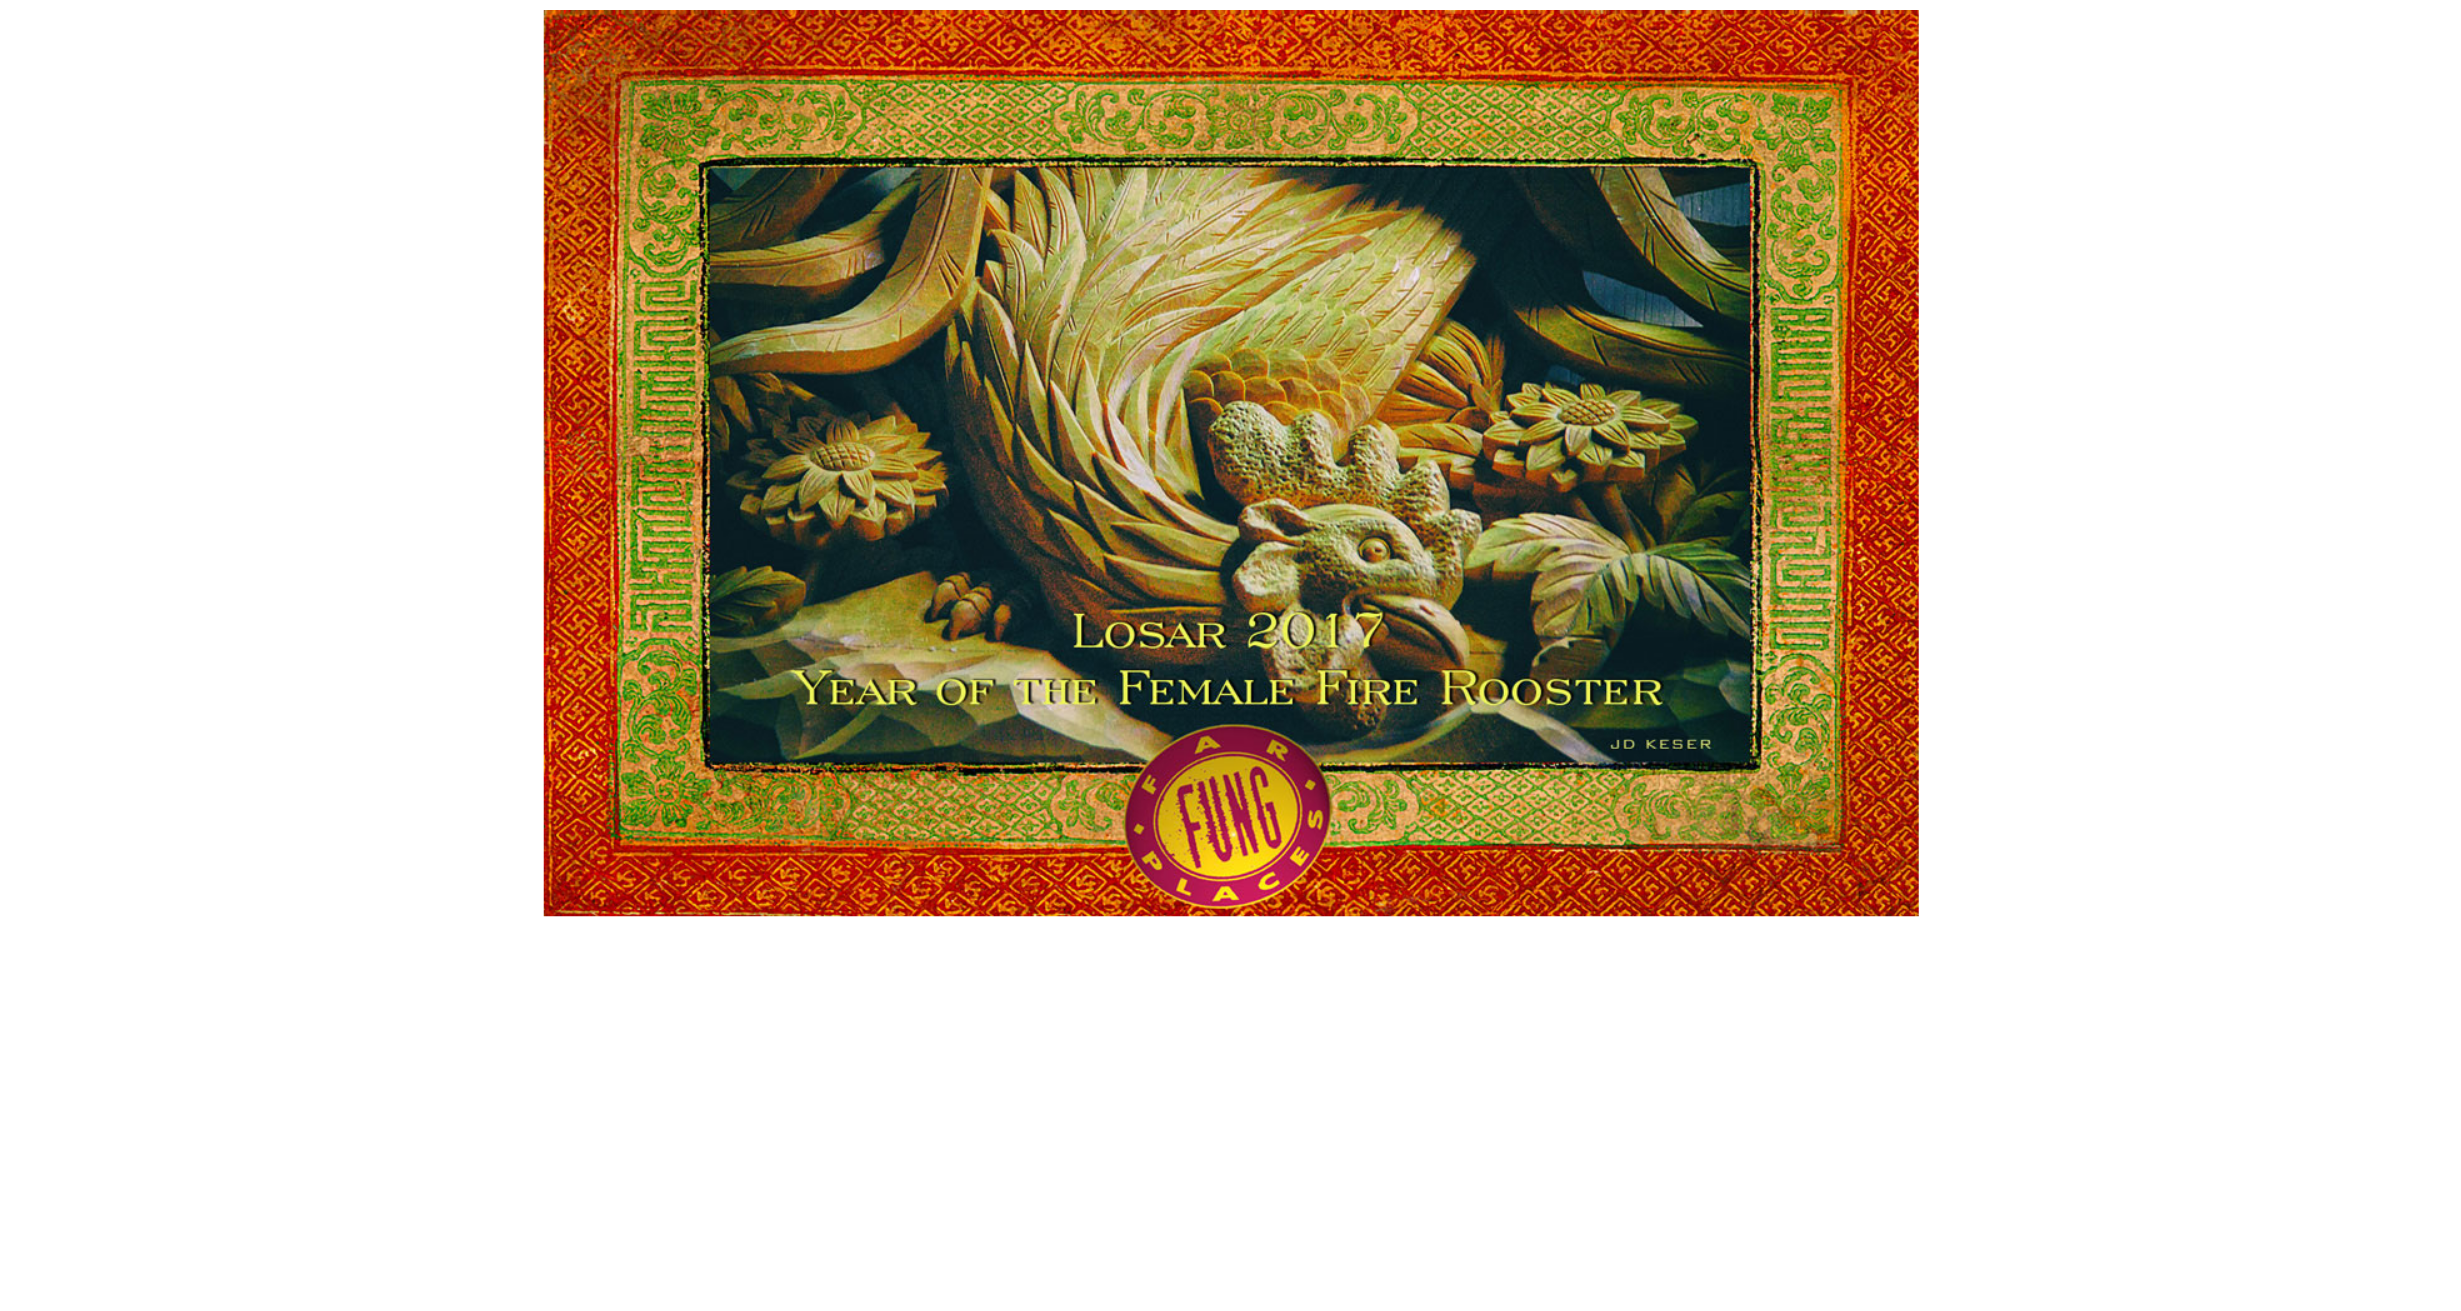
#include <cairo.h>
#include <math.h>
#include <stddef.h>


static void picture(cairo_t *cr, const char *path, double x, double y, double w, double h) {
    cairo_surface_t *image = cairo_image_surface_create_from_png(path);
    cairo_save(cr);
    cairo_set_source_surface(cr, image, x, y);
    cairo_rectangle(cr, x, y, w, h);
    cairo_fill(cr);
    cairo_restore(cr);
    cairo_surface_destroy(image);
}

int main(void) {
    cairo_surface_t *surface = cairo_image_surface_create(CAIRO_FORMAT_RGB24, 2461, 1311);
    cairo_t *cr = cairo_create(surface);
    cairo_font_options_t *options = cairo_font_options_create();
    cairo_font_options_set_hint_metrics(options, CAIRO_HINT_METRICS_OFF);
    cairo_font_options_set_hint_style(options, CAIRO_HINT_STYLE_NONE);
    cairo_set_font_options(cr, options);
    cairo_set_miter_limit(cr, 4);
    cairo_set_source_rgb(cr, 1, 1, 1);
    cairo_paint(cr);
    picture(cr, "img1.png", 543, 10, 1376, 907);
    cairo_surface_write_to_png(surface, "page.png");
    cairo_font_options_destroy(options);
    cairo_destroy(cr);
    cairo_surface_destroy(surface);
    return 0;
}
